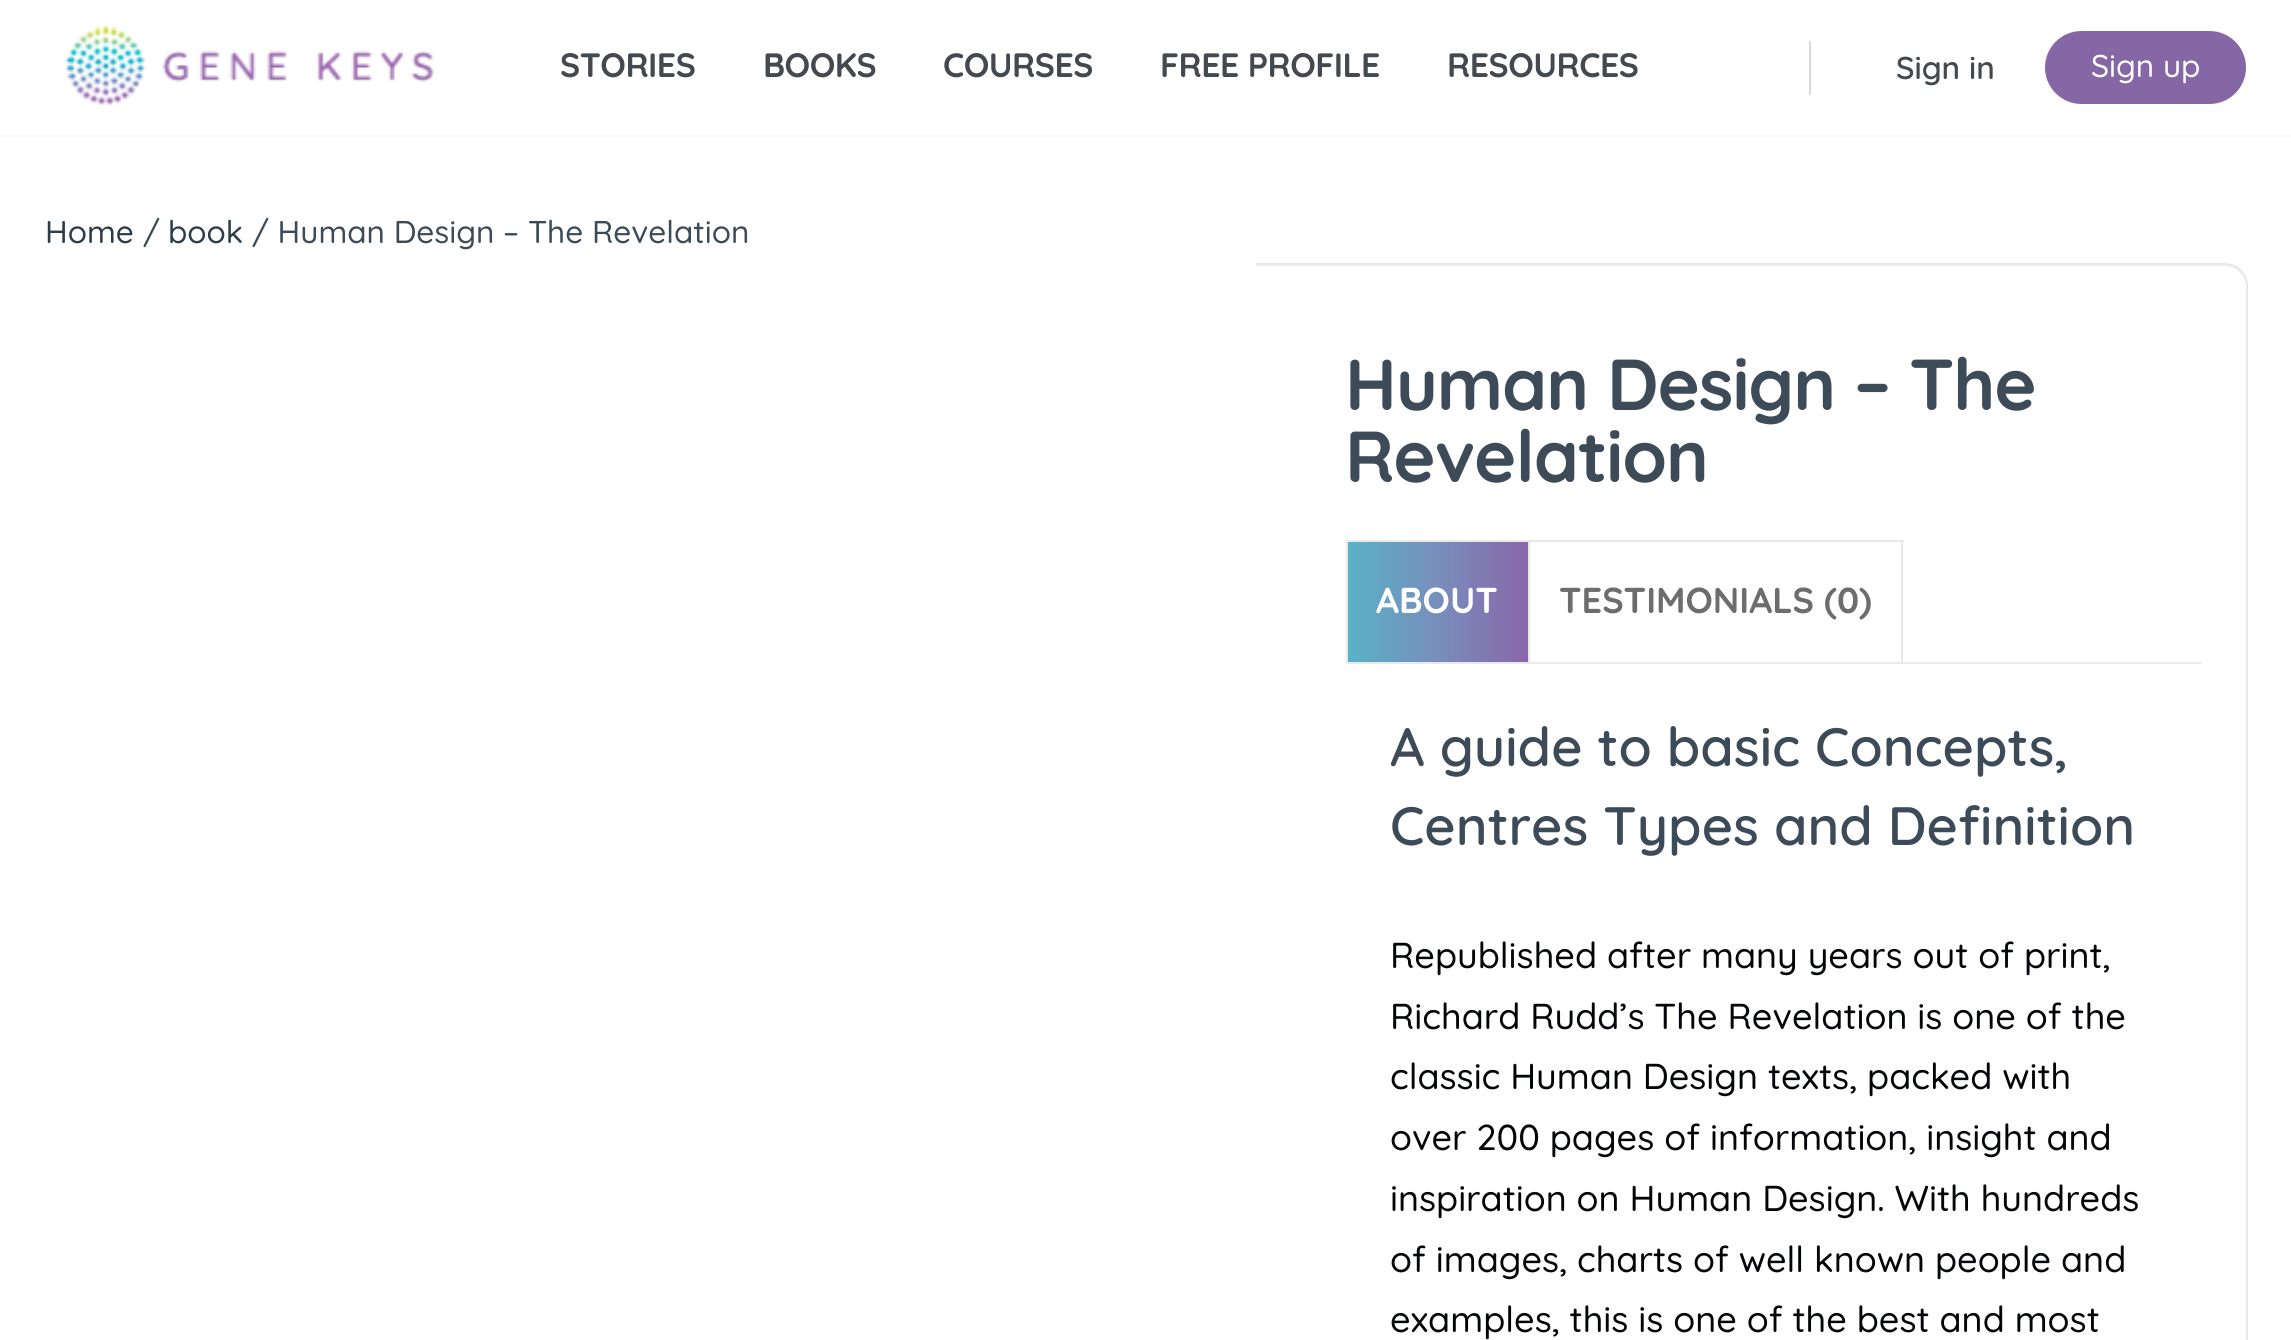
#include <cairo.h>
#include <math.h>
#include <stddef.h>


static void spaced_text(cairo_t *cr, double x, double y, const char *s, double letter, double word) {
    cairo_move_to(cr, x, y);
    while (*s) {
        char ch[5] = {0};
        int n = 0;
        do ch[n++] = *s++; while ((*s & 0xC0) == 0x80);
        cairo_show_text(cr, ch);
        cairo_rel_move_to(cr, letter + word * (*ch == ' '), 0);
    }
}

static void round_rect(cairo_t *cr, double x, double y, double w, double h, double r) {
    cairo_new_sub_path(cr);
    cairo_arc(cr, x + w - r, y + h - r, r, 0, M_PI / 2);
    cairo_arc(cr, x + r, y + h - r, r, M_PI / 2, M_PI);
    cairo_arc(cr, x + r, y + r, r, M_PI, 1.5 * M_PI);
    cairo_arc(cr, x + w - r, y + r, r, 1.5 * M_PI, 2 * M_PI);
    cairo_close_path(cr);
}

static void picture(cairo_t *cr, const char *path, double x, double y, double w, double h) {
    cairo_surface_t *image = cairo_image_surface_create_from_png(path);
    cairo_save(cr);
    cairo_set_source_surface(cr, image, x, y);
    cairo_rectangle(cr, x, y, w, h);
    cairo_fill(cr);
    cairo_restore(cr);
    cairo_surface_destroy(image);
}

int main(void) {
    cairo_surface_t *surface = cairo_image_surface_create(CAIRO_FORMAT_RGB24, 2291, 1340);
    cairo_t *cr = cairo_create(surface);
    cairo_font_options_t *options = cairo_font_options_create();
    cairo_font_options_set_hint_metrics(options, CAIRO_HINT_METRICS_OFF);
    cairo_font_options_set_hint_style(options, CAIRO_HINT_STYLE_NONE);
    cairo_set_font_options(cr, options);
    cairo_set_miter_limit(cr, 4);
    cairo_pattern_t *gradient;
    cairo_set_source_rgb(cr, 1, 1, 1);
    cairo_paint(cr);
    cairo_set_source_rgba(cr, 0.545, 0.553, 0.616, 0.05);
    cairo_new_path(cr);
    cairo_move_to(cr, 0, 135);
    cairo_line_to(cr, 0, 137);
    cairo_line_to(cr, 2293, 137);
    cairo_line_to(cr, 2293, 2);
    cairo_line_to(cr, 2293, 135);
    cairo_close_path(cr);
    cairo_fill(cr);
    picture(cr, "img1.png", 65, 26, 369, 80);
    cairo_select_font_face(cr, "Quicksand", CAIRO_FONT_SLANT_NORMAL, CAIRO_FONT_WEIGHT_BOLD);
    cairo_set_font_size(cr, 33.75);
    cairo_set_source_rgb(cr, 0.263, 0.286, 0.31);
    spaced_text(cr, 560, 77, "STORIES", -0.5, 0);
    spaced_text(cr, 763, 77, "BOOKS", -0.5, 0);
    spaced_text(cr, 943, 77, "COURSES", -0.5, 0);
    spaced_text(cr, 1160, 77, "FREE PROFILE", -0.5, 0);
    spaced_text(cr, 1447, 77, "RESOURCES", -0.5, 0);
    cairo_set_source_rgb(cr, 0.851, 0.859, 0.863);
    cairo_rectangle(cr, 1809, 41, 2, 54);
    cairo_fill(cr);
    cairo_select_font_face(cr, "Quicksand SemiBold", CAIRO_FONT_SLANT_NORMAL, CAIRO_FONT_WEIGHT_NORMAL);
    cairo_set_font_size(cr, 31.5);
    cairo_set_source_rgb(cr, 0.263, 0.286, 0.31);
    cairo_move_to(cr, 1896, 79);
    cairo_show_text(cr, "Sign in");
    cairo_set_source_rgb(cr, 0.525, 0.404, 0.647);
    round_rect(cr, 2044, 30, 203, 75, 37.5);
    cairo_fill_preserve(cr);
    cairo_set_source_rgb(cr, 1, 1, 1);
    cairo_stroke(cr);
    cairo_select_font_face(cr, "Quicksand Medium", CAIRO_FONT_SLANT_NORMAL, CAIRO_FONT_WEIGHT_NORMAL);
    cairo_move_to(cr, 2091, 77);
    cairo_show_text(cr, "Sign up");
    cairo_set_source_rgb(cr, 0.169, 0.239, 0.286);
    cairo_move_to(cr, 45, 243);
    cairo_show_text(cr, "Home");
    cairo_set_source_rgb(cr, 0.239, 0.294, 0.349);
    cairo_move_to(cr, 143, 243);
    cairo_show_text(cr, "/");
    cairo_set_source_rgb(cr, 0.169, 0.239, 0.286);
    cairo_move_to(cr, 168, 243);
    cairo_show_text(cr, "book");
    cairo_set_source_rgb(cr, 0.239, 0.294, 0.349);
    cairo_move_to(cr, 252, 243);
    cairo_show_text(cr, "/ Human Design – The Revelation");
    cairo_set_source_rgb(cr, 0.906, 0.914, 0.925);
    cairo_set_fill_rule(cr, CAIRO_FILL_RULE_EVEN_ODD);
    cairo_new_path(cr);
    cairo_move_to(cr, 1256, 263);
    cairo_line_to(cr, 2225, 263);
    cairo_curve_to(cr, 2238, 263, 2248, 273, 2248, 286);
    cairo_line_to(cr, 2248, 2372);
    cairo_curve_to(cr, 2248, 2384, 2238, 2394, 2225, 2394);
    cairo_line_to(cr, 1256, 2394);
    cairo_close_path(cr);
    cairo_move_to(cr, 1256, 266);
    cairo_line_to(cr, 2225, 266);
    cairo_curve_to(cr, 2236, 266, 2246, 275, 2246, 286);
    cairo_line_to(cr, 2246, 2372);
    cairo_curve_to(cr, 2246, 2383, 2236, 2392, 2225, 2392);
    cairo_line_to(cr, 1256, 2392);
    cairo_close_path(cr);
    cairo_fill(cr);
    cairo_select_font_face(cr, "Quicksand", CAIRO_FONT_SLANT_NORMAL, CAIRO_FONT_WEIGHT_BOLD);
    cairo_set_font_size(cr, 72);
    cairo_set_source_rgb(cr, 0.239, 0.294, 0.349);
    spaced_text(cr, 1345, 410, "Human Design – The", -1.1, 0);
    spaced_text(cr, 1345, 482, "Revelation", -1.1, 0);
    cairo_set_source_rgb(cr, 0.914, 0.914, 0.914);
    cairo_rectangle(cr, 1346, 662, 855, 2);
    cairo_fill(cr);
    cairo_rectangle(cr, 1346, 540, 2, 124);
    cairo_fill(cr);
    gradient = cairo_pattern_create_linear(1348, 602, 1528, 602);
    cairo_pattern_add_color_stop_rgba(gradient, 0, 0.349, 0.698, 0.784, 1);
    cairo_pattern_add_color_stop_rgba(gradient, 0.5, 0.471, 0.557, 0.737, 1);
    cairo_pattern_add_color_stop_rgba(gradient, 1, 0.537, 0.4, 0.663, 1);
    cairo_set_source(cr, gradient);
    cairo_pattern_destroy(gradient);
    cairo_rectangle(cr, 1348, 542, 180, 120);
    cairo_fill(cr);
    cairo_set_source_rgb(cr, 0.914, 0.914, 0.914);
    cairo_rectangle(cr, 1348, 540, 556, 2);
    cairo_fill(cr);
    cairo_rectangle(cr, 1528, 540, 2, 122);
    cairo_fill(cr);
    cairo_set_font_size(cr, 36);
    cairo_set_source_rgb(cr, 1, 1, 1);
    cairo_move_to(cr, 1376, 613);
    cairo_show_text(cr, "ABOUT");
    cairo_set_source_rgb(cr, 0.914, 0.914, 0.914);
    cairo_rectangle(cr, 1901, 540, 2, 122);
    cairo_fill(cr);
    cairo_set_source_rgb(cr, 0.427, 0.427, 0.427);
    cairo_move_to(cr, 1559, 613);
    cairo_show_text(cr, "TESTIMONIALS (0)");
    cairo_select_font_face(cr, "Quicksand SemiBold", CAIRO_FONT_SLANT_NORMAL, CAIRO_FONT_WEIGHT_NORMAL);
    cairo_set_font_size(cr, 54);
    cairo_set_source_rgb(cr, 0.239, 0.294, 0.349);
    cairo_move_to(cr, 1390, 766);
    cairo_show_text(cr, "A guide to basic Concepts,");
    cairo_move_to(cr, 1390, 845);
    cairo_show_text(cr, "Centres Types and Definition");
    cairo_select_font_face(cr, "Quicksand Medium", CAIRO_FONT_SLANT_NORMAL, CAIRO_FONT_WEIGHT_NORMAL);
    cairo_set_font_size(cr, 36);
    cairo_set_source_rgb(cr, 0.016, 0.02, 0.039);
    cairo_move_to(cr, 1390, 968);
    cairo_show_text(cr, "Republished after many years out of print,");
    cairo_move_to(cr, 1390, 1029);
    cairo_show_text(cr, "Richard Rudd’s The Revelation is one of the");
    cairo_move_to(cr, 1390, 1089);
    cairo_show_text(cr, "classic Human Design texts, packed with");
    cairo_move_to(cr, 1390, 1150);
    cairo_show_text(cr, "over 200 pages of information, insight and");
    cairo_move_to(cr, 1390, 1211);
    cairo_show_text(cr, "inspiration on Human Design. With hundreds");
    cairo_move_to(cr, 1390, 1272);
    cairo_show_text(cr, "of images, charts of well known people and");
    cairo_move_to(cr, 1390, 1332);
    cairo_show_text(cr, "examples, this is one of the best and most");
    cairo_surface_write_to_png(surface, "page.png");
    cairo_font_options_destroy(options);
    cairo_destroy(cr);
    cairo_surface_destroy(surface);
    return 0;
}
